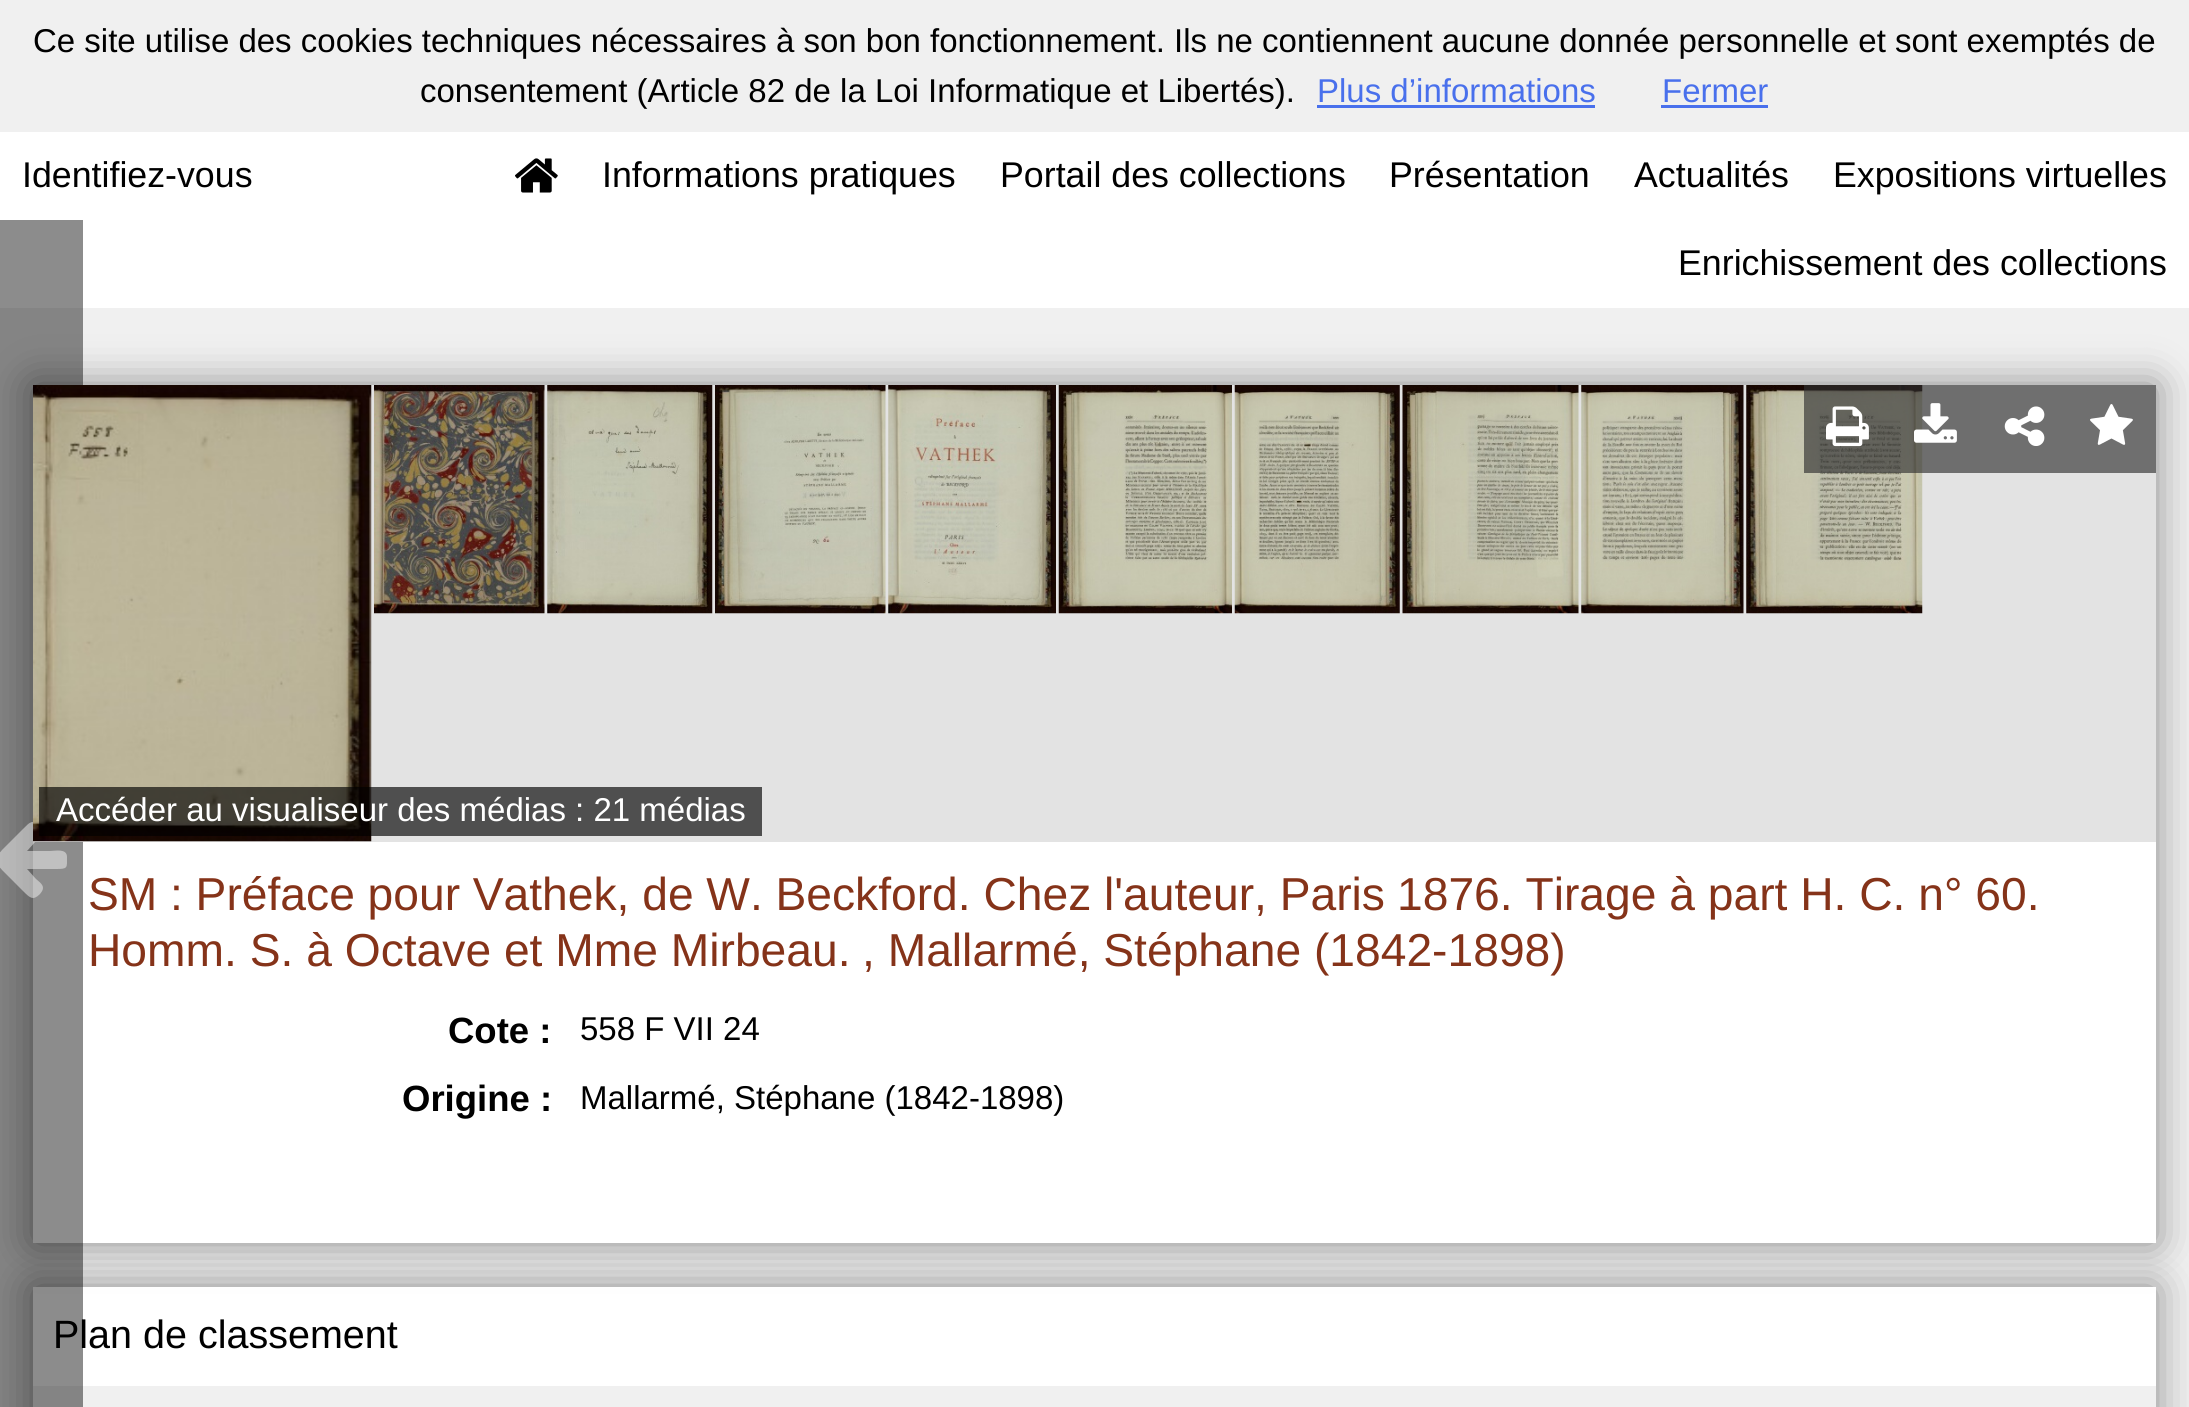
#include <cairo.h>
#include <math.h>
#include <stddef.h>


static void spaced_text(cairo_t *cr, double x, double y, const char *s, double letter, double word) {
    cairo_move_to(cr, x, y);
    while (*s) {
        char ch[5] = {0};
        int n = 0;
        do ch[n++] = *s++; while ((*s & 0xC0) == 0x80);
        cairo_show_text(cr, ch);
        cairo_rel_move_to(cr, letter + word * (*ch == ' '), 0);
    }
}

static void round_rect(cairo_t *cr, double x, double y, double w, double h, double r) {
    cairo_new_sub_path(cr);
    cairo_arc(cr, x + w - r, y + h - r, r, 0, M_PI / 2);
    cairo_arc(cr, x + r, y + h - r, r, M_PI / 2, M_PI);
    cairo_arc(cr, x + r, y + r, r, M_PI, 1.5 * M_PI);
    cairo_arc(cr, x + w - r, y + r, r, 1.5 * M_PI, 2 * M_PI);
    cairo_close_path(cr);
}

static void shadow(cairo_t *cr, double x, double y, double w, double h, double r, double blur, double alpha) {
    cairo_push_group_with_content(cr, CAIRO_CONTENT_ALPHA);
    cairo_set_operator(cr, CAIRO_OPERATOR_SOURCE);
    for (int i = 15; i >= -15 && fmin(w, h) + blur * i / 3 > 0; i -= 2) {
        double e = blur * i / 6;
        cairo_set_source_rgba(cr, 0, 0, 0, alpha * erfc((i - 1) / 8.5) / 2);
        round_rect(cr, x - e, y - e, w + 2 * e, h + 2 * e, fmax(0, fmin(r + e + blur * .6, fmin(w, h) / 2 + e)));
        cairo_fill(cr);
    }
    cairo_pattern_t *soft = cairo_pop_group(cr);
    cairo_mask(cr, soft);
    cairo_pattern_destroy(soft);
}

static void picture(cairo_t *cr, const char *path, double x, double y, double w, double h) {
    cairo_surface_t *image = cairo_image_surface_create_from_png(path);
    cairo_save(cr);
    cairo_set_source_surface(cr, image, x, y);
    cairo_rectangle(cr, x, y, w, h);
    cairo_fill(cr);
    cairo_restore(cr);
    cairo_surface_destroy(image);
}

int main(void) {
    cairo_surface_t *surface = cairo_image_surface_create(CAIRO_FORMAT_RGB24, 2189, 1407);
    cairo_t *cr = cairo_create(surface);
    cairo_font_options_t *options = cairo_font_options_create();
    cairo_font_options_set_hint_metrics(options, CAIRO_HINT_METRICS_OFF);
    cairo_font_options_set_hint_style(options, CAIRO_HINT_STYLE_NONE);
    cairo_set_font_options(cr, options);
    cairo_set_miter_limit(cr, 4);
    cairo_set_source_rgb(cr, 0.941, 0.941, 0.941);
    cairo_paint(cr);
    cairo_select_font_face(cr, "Liberation Sans", CAIRO_FONT_SLANT_NORMAL, CAIRO_FONT_WEIGHT_NORMAL);
    cairo_set_font_size(cr, 33);
    cairo_set_source_rgb(cr, 0, 0, 0);
    cairo_move_to(cr, 33, 52);
    cairo_show_text(cr, "Ce site utilise des cookies techniques nécessaires à son bon fonctionnement. Ils ne contiennent aucune donnée personnelle et sont exemptés de");
    cairo_move_to(cr, 420, 102);
    cairo_show_text(cr, "consentement (Article 82 de la Loi Informatique et Libertés).");
    cairo_set_source_rgb(cr, 0.286, 0.439, 0.925);
    cairo_move_to(cr, 1317, 102);
    cairo_show_text(cr, "Plus d’informations");
    cairo_rectangle(cr, 1317, 105, 278, 3);
    cairo_fill(cr);
    cairo_move_to(cr, 1662, 102);
    cairo_show_text(cr, "Fermer");
    cairo_rectangle(cr, 1661, 105, 107, 3);
    cairo_fill(cr);
    cairo_set_source_rgb(cr, 1, 1, 1);
    cairo_rectangle(cr, 0, 132, 2189, 176);
    cairo_fill(cr);
    cairo_set_font_size(cr, 35.75);
    cairo_set_source_rgb(cr, 0, 0, 0);
    cairo_move_to(cr, 22, 187);
    cairo_show_text(cr, "Identifiez-vous");
    picture(cr, "img1.png", 515, 158, 43, 35);
    cairo_move_to(cr, 602, 187);
    cairo_show_text(cr, "Informations pratiques");
    cairo_move_to(cr, 1000, 187);
    cairo_show_text(cr, "Portail des collections");
    cairo_move_to(cr, 1389, 187);
    cairo_show_text(cr, "Présentation");
    cairo_move_to(cr, 1634, 187);
    cairo_show_text(cr, "Actualités");
    cairo_move_to(cr, 1833, 187);
    cairo_show_text(cr, "Expositions virtuelles");
    cairo_move_to(cr, 1678, 275);
    cairo_show_text(cr, "Enrichissement des collections");
    cairo_save(cr);
    cairo_set_fill_rule(cr, CAIRO_FILL_RULE_EVEN_ODD);
    cairo_new_path(cr);
    cairo_move_to(cr, 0, 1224);
    cairo_line_to(cr, 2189, 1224);
    cairo_line_to(cr, 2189, 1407);
    cairo_line_to(cr, 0, 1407);
    cairo_close_path(cr);
    cairo_move_to(cr, 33, 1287);
    cairo_line_to(cr, 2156, 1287);
    cairo_line_to(cr, 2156, 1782);
    cairo_line_to(cr, 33, 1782);
    cairo_close_path(cr);
    cairo_clip(cr);
    cairo_set_source_rgb(cr, 0.533, 0.533, 0.533);
    shadow(cr, 33, 1287, 2123, 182, 0, 20.5, 1);
    cairo_restore(cr);
    cairo_set_source_rgb(cr, 1, 1, 1);
    cairo_rectangle(cr, 33, 1287, 2123, 99);
    cairo_fill(cr);
    cairo_set_source_rgb(cr, 0.533, 0.533, 0.533);
    shadow(cr, 33, 385, 2123, 858, 0, 20.5, 1);
    cairo_set_source_rgb(cr, 1, 1, 1);
    cairo_rectangle(cr, 33, 842, 2123, 401);
    cairo_fill(cr);
    cairo_set_font_size(cr, 39.5);
    cairo_set_source_rgb(cr, 0, 0, 0);
    cairo_move_to(cr, 53, 1348);
    cairo_show_text(cr, "Plan de classement");
    cairo_set_source_rgba(cr, 0, 0, 0, 0.45);
    cairo_rectangle(cr, 0, 220, 83, 1187);
    cairo_fill(cr);
    cairo_set_source_rgba(cr, 1, 1, 1, 0.45);
    cairo_new_path(cr);
    cairo_move_to(cr, 67, 857);
    cairo_curve_to(cr, 67, 868, 68, 869, 56, 869);
    cairo_line_to(cr, 27, 869);
    cairo_line_to(cr, 36, 879);
    cairo_curve_to(cr, 42, 884, 46, 887, 40, 894);
    cairo_curve_to(cr, 33, 901, 30, 898, 23, 891);
    cairo_line_to(cr, 2, 870);
    cairo_curve_to(cr, 0, 867, -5, 864, -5, 860);
    cairo_curve_to(cr, -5, 856, 0, 853, 2, 850);
    cairo_line_to(cr, 23, 829);
    cairo_curve_to(cr, 30, 822, 32, 819, 40, 826);
    cairo_curve_to(cr, 46, 832, 42, 836, 36, 841);
    cairo_line_to(cr, 27, 851);
    cairo_line_to(cr, 50, 851);
    cairo_curve_to(cr, 55, 851, 67, 848, 67, 857);
    cairo_close_path(cr);
    cairo_fill(cr);
    cairo_set_source_rgb(cr, 0.89, 0.89, 0.89);
    cairo_rectangle(cr, 33, 385, 2123, 457);
    cairo_fill(cr);
    picture(cr, "img15.png", 1746, 385, 177, 229);
    cairo_set_source_rgba(cr, 0.192, 0.192, 0.192, 0.65);
    cairo_rectangle(cr, 1804, 385, 88, 88);
    cairo_fill(cr);
    picture(cr, "img2.png", 1826, 406, 43, 41);
    cairo_rectangle(cr, 1892, 385, 88, 88);
    cairo_fill(cr);
    picture(cr, "img3.png", 1914, 403, 43, 40);
    cairo_set_source_rgb(cr, 0.435, 0.435, 0.435);
    cairo_rectangle(cr, 1980, 385, 176, 88);
    cairo_fill(cr);
    picture(cr, "img4.png", 2090, 404, 43, 41);
    picture(cr, "img5.png", 2004, 406, 41, 40);
    picture(cr, "img6.png", 33, 385, 339, 457);
    picture(cr, "img7.png", 374, 385, 171, 229);
    picture(cr, "img8.png", 547, 385, 166, 229);
    picture(cr, "img9.png", 715, 385, 171, 229);
    picture(cr, "img10.png", 888, 385, 168, 229);
    picture(cr, "img11.png", 1058, 385, 174, 229);
    picture(cr, "img12.png", 1234, 385, 166, 229);
    picture(cr, "img13.png", 1402, 385, 177, 229);
    picture(cr, "img14.png", 1581, 385, 163, 229);
    cairo_set_source_rgba(cr, 0, 0, 0, 0.65);
    cairo_rectangle(cr, 39, 787, 723, 49);
    cairo_fill(cr);
    cairo_set_font_size(cr, 33);
    cairo_set_source_rgb(cr, 1, 1, 1);
    cairo_move_to(cr, 56, 821);
    cairo_show_text(cr, "Accéder au visualiseur des médias : 21 médias");
    cairo_set_font_size(cr, 46.2);
    cairo_set_source_rgb(cr, 0.522, 0.2, 0.098);
    spaced_text(cr, 88, 910, "SM : Préface pour Vathek, de W. Beckford. Chez l'auteur, Paris", 0, -0.1);
    cairo_move_to(cr, 1397, 910);
    cairo_show_text(cr, "1876. Tirage à part H. C. n° 60.");
    cairo_move_to(cr, 88, 966);
    cairo_show_text(cr, "Homm. S. à Octave et Mme Mirbeau.");
    cairo_move_to(cr, 862, 966);
    cairo_show_text(cr, ", Mallarmé, Stéphane (1842-1898)");
    cairo_select_font_face(cr, "Liberation Sans", CAIRO_FONT_SLANT_NORMAL, CAIRO_FONT_WEIGHT_BOLD);
    cairo_set_font_size(cr, 36.5);
    cairo_set_source_rgb(cr, 0, 0, 0);
    cairo_move_to(cr, 448, 1043);
    cairo_show_text(cr, "Cote :");
    cairo_select_font_face(cr, "Liberation Sans", CAIRO_FONT_SLANT_NORMAL, CAIRO_FONT_WEIGHT_NORMAL);
    cairo_set_font_size(cr, 33);
    cairo_move_to(cr, 580, 1040);
    cairo_show_text(cr, "558 F VII 24");
    cairo_select_font_face(cr, "Liberation Sans", CAIRO_FONT_SLANT_NORMAL, CAIRO_FONT_WEIGHT_BOLD);
    cairo_set_font_size(cr, 36.5);
    cairo_move_to(cr, 402, 1111);
    cairo_show_text(cr, "Origine :");
    cairo_select_font_face(cr, "Liberation Sans", CAIRO_FONT_SLANT_NORMAL, CAIRO_FONT_WEIGHT_NORMAL);
    cairo_set_font_size(cr, 33);
    cairo_move_to(cr, 580, 1109);
    cairo_show_text(cr, "Mallarmé, Stéphane (1842-1898)");
    cairo_surface_write_to_png(surface, "page.png");
    cairo_font_options_destroy(options);
    cairo_destroy(cr);
    cairo_surface_destroy(surface);
    return 0;
}
